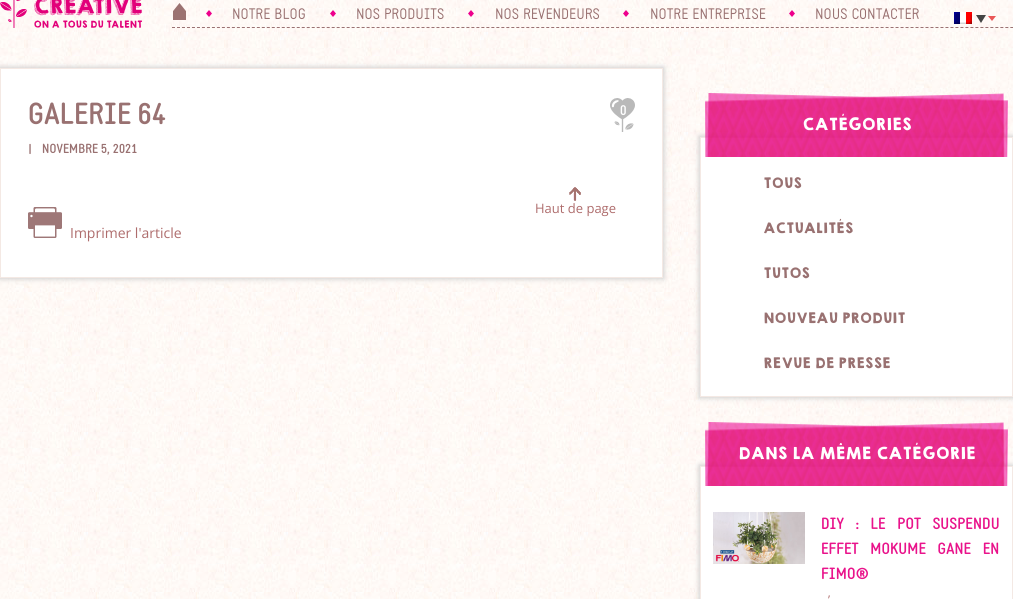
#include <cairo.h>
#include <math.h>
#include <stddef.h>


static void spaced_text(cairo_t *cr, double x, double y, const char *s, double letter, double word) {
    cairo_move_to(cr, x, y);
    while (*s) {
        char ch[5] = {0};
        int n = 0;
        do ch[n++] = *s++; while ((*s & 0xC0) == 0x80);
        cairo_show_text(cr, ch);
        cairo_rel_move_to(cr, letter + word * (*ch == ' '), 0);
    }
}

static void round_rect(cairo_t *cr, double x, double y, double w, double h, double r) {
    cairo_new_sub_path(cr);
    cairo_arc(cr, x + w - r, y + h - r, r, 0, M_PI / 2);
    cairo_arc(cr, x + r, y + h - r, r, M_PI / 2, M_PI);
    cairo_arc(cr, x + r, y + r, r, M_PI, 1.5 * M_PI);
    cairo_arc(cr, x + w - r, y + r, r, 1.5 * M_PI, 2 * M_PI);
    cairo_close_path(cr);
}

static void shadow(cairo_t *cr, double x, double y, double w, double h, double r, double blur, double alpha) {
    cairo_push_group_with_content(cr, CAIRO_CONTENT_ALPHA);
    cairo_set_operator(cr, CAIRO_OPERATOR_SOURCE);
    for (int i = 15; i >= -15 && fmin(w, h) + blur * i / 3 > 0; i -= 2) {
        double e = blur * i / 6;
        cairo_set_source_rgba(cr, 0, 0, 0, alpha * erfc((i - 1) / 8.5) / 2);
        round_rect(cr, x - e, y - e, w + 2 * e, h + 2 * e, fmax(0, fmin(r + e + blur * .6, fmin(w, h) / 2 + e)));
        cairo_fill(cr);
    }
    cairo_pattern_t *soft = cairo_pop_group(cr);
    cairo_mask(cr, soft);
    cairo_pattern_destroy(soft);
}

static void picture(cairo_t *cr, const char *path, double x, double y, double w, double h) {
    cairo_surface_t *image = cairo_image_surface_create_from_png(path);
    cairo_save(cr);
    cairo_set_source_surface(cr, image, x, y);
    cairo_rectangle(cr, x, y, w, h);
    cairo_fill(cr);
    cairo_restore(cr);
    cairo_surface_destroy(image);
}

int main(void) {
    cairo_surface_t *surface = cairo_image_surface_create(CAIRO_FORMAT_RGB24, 1013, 599);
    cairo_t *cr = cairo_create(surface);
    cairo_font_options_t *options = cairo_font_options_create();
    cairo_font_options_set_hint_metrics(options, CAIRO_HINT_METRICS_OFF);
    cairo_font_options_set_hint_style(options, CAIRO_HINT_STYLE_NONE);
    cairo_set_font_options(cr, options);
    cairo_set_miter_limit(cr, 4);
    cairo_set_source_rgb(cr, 1, 1, 1);
    cairo_paint(cr);
    picture(cr, "img1.png", 0, 0, 1013, 599);
    picture(cr, "img2.png", 0, 0, 142, 28);
    cairo_new_path(cr);
    cairo_move_to(cr, 172, 27.5);
    cairo_line_to(cr, 1013, 27.5);
    cairo_set_source_rgb(cr, 0.604, 0.447, 0.447);
    cairo_set_line_width(cr, 1);
    cairo_set_dash(cr, (double[]){3, 1.99}, 2, 0);
    cairo_stroke(cr);
    picture(cr, "img3.png", 173, 3, 13, 17);
    picture(cr, "img4.png", 206, 10, 6, 7);
    cairo_select_font_face(cr, "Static", CAIRO_FONT_SLANT_NORMAL, CAIRO_FONT_WEIGHT_NORMAL);
    cairo_set_font_size(cr, 15);
    cairo_set_source_rgb(cr, 0.6, 0.443, 0.443);
    cairo_move_to(cr, 232, 19);
    cairo_show_text(cr, "NOTRE BLOG");
    picture(cr, "img5.png", 330, 10, 6, 7);
    cairo_move_to(cr, 356, 19);
    cairo_show_text(cr, "NOS PRODUITS");
    picture(cr, "img6.png", 468, 10, 6, 7);
    cairo_move_to(cr, 495, 19);
    cairo_show_text(cr, "NOS REVENDEURS");
    picture(cr, "img7.png", 623, 10, 6, 7);
    cairo_move_to(cr, 650, 19);
    cairo_show_text(cr, "NOTRE ENTREPRISE");
    picture(cr, "img8.png", 789, 10, 6, 7);
    cairo_move_to(cr, 815, 19);
    cairo_show_text(cr, "NOUS CONTACTER");
    picture(cr, "img9.png", 988, 16, 8, 5);
    picture(cr, "img10.png", 954, 12, 18, 12);
    cairo_set_source_rgb(cr, 0.267, 0.267, 0.267);
    cairo_new_path(cr);
    cairo_move_to(cr, 976, 15);
    cairo_line_to(cr, 986, 15);
    cairo_line_to(cr, 981, 23);
    cairo_close_path(cr);
    cairo_fill(cr);
    cairo_set_source_rgb(cr, 0.812, 0.812, 0.812);
    shadow(cr, -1, 67, 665, 212, 0, 2.5, 1);
    cairo_set_source_rgb(cr, 1, 1, 1);
    cairo_rectangle(cr, 0.5, 68.5, 662, 209);
    cairo_fill_preserve(cr);
    cairo_set_source_rgb(cr, 0.957, 0.914, 0.894);
    cairo_set_dash(cr, NULL, 0, 0);
    cairo_stroke(cr);
    cairo_select_font_face(cr, "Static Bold", CAIRO_FONT_SLANT_NORMAL, CAIRO_FONT_WEIGHT_BOLD);
    cairo_set_font_size(cr, 30);
    cairo_set_source_rgb(cr, 0.6, 0.443, 0.443);
    cairo_move_to(cr, 28, 124);
    cairo_show_text(cr, "GALERIE 64");
    cairo_set_font_size(cr, 13);
    cairo_move_to(cr, 28, 153);
    cairo_show_text(cr, "|");
    cairo_move_to(cr, 42, 153);
    cairo_show_text(cr, "NOVEMBRE 5, 2021");
    picture(cr, "img11.png", 610, 98, 25, 34);
    cairo_set_font_size(cr, 14);
    cairo_set_source_rgb(cr, 1, 1, 1);
    cairo_move_to(cr, 620, 115);
    cairo_show_text(cr, "0");
    picture(cr, "img12.png", 569, 187, 12, 14);
    cairo_select_font_face(cr, "Open Sans", CAIRO_FONT_SLANT_NORMAL, CAIRO_FONT_WEIGHT_NORMAL);
    cairo_set_font_size(cr, 13);
    cairo_set_source_rgb(cr, 0.682, 0.424, 0.424);
    cairo_move_to(cr, 535, 213);
    cairo_show_text(cr, "Haut de page");
    picture(cr, "img13.png", 28, 207, 34, 31);
    cairo_set_font_size(cr, 14);
    cairo_move_to(cr, 70, 238);
    cairo_show_text(cr, "Imprimer l'article");
    cairo_set_source_rgb(cr, 0.812, 0.812, 0.812);
    shadow(cr, 699, 136, 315, 262, 0, 2.5, 1);
    cairo_set_source_rgb(cr, 1, 1, 1);
    cairo_rectangle(cr, 700.5, 137.5, 312, 259);
    cairo_fill_preserve(cr);
    cairo_set_source_rgb(cr, 0.957, 0.914, 0.894);
    cairo_stroke(cr);
    picture(cr, "img14.png", 705, 93, 303, 64);
    cairo_select_font_face(cr, "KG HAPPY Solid", CAIRO_FONT_SLANT_NORMAL, CAIRO_FONT_WEIGHT_NORMAL);
    cairo_set_font_size(cr, 15);
    cairo_set_source_rgb(cr, 1, 1, 1);
    cairo_move_to(cr, 802, 130);
    cairo_show_text(cr, "CATÉGORIES");
    cairo_set_font_size(cr, 13);
    cairo_set_source_rgb(cr, 0.6, 0.443, 0.443);
    cairo_move_to(cr, 763, 188);
    cairo_show_text(cr, "TOUS");
    cairo_move_to(cr, 763, 233);
    cairo_show_text(cr, "ACTUALITÉS");
    cairo_move_to(cr, 763, 278);
    cairo_show_text(cr, "TUTOS");
    cairo_move_to(cr, 763, 323);
    cairo_show_text(cr, "NOUVEAU PRODUIT");
    cairo_move_to(cr, 763, 368);
    cairo_show_text(cr, "REVUE DE PRESSE");
    cairo_set_source_rgb(cr, 0.812, 0.812, 0.812);
    shadow(cr, 699, 465, 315, 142, 0, 2.5, 1);
    cairo_set_source_rgb(cr, 1, 1, 1);
    cairo_rectangle(cr, 700.5, 466.5, 312, 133);
    cairo_fill_preserve(cr);
    cairo_set_source_rgb(cr, 0.957, 0.914, 0.894);
    cairo_stroke(cr);
    picture(cr, "img15.png", 705, 422, 303, 64);
    cairo_set_font_size(cr, 15);
    cairo_set_source_rgb(cr, 1, 1, 1);
    cairo_move_to(cr, 738, 459);
    cairo_show_text(cr, "DANS LA MÊME CATÉGORIE");
    picture(cr, "img16.png", 713, 512, 92, 52);
    cairo_select_font_face(cr, "Static Bold", CAIRO_FONT_SLANT_NORMAL, CAIRO_FONT_WEIGHT_BOLD);
    cairo_set_font_size(cr, 16);
    cairo_set_source_rgb(cr, 0.914, 0.075, 0.545);
    spaced_text(cr, 821, 529, "DIY : LE POT SUSPENDU", 0, 8);
    spaced_text(cr, 821, 554, "EFFET MOKUME GANE EN", 0, 8);
    cairo_move_to(cr, 821, 579);
    cairo_show_text(cr, "FIMO®");
    cairo_select_font_face(cr, "Open Sans", CAIRO_FONT_SLANT_NORMAL, CAIRO_FONT_WEIGHT_NORMAL);
    cairo_set_font_size(cr, 12);
    cairo_set_source_rgb(cr, 0.682, 0.424, 0.424);
    spaced_text(cr, 828, 604, "’", 0, 2);
    cairo_surface_write_to_png(surface, "page.png");
    cairo_font_options_destroy(options);
    cairo_destroy(cr);
    cairo_surface_destroy(surface);
    return 0;
}
